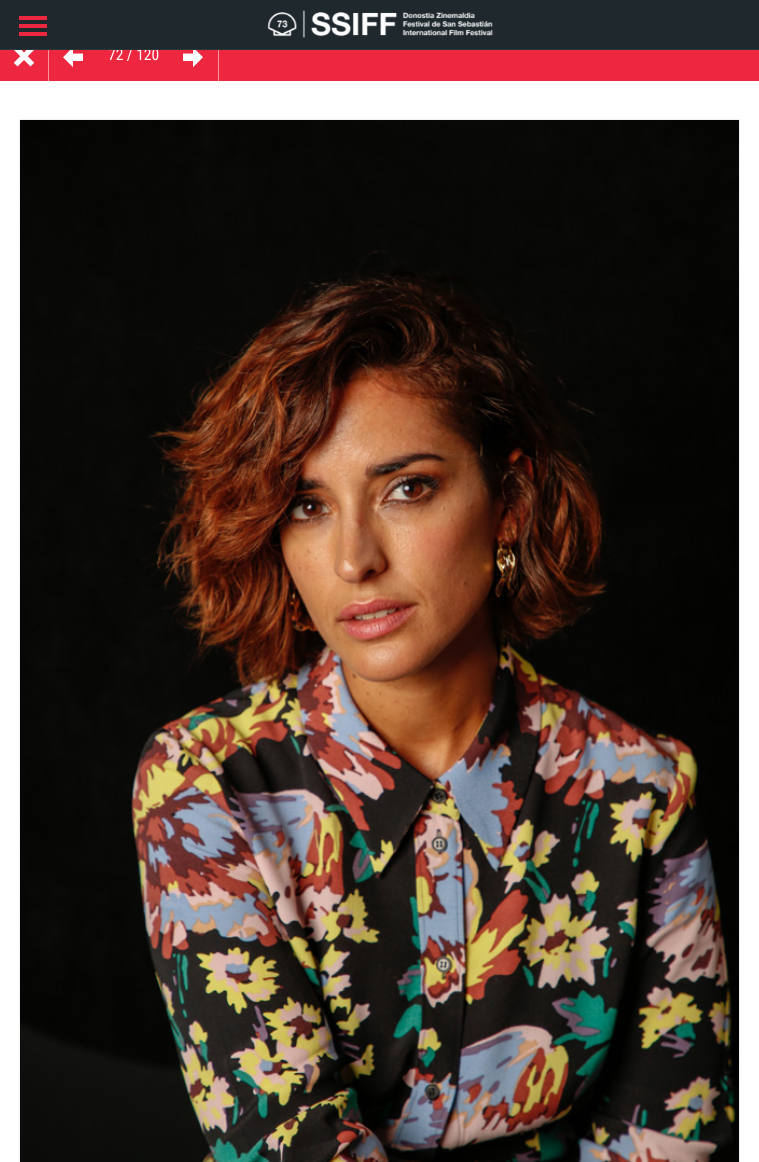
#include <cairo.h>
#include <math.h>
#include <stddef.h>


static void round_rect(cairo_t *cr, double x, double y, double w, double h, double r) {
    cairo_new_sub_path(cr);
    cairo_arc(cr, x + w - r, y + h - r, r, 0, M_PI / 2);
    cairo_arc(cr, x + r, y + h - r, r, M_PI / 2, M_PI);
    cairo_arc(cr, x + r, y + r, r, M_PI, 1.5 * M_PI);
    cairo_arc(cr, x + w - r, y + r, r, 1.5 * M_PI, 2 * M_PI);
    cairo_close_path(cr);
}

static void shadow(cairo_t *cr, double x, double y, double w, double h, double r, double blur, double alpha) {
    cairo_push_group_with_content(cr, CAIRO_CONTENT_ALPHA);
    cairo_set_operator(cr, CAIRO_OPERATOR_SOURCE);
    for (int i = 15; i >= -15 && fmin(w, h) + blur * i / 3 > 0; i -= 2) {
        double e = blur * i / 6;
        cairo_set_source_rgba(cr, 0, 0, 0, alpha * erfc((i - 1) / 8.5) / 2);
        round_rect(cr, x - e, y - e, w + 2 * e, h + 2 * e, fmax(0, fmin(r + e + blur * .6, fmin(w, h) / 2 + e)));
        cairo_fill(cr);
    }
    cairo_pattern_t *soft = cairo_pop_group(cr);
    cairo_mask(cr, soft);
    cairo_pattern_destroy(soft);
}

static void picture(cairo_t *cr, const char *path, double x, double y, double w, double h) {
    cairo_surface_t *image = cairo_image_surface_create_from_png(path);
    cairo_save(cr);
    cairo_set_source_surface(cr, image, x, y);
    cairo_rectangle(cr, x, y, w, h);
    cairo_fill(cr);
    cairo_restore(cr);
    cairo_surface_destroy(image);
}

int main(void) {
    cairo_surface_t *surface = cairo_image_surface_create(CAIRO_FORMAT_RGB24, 759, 1162);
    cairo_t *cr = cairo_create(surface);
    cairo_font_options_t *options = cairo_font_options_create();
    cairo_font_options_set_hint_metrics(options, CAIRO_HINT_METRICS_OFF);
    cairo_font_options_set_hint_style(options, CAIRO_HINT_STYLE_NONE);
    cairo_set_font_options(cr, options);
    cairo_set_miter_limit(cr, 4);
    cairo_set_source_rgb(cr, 1, 1, 1);
    cairo_paint(cr);
    cairo_set_source_rgb(cr, 0.922, 0.153, 0.247);
    cairo_rectangle(cr, 0, 50, 759, 31);
    cairo_fill(cr);
    cairo_select_font_face(cr, "Roboto Condensed", CAIRO_FONT_SLANT_NORMAL, CAIRO_FONT_WEIGHT_NORMAL);
    cairo_set_font_size(cr, 15.5);
    cairo_set_source_rgb(cr, 1, 1, 1);
    cairo_move_to(cr, 108, 60);
    cairo_show_text(cr, "72 / 120");
    cairo_set_source_rgb(cr, 0.122, 0.157, 0.176);
    cairo_rectangle(cr, 0, 0, 759, 49);
    cairo_fill(cr);
    cairo_set_source_rgb(cr, 0.153, 0.216, 0.235);
    cairo_rectangle(cr, 0, 49, 759, 1);
    cairo_fill(cr);
    cairo_set_source_rgb(cr, 0.922, 0.153, 0.247);
    cairo_rectangle(cr, 19, 16, 28, 4);
    cairo_fill(cr);
    cairo_rectangle(cr, 19, 24, 28, 4);
    cairo_fill(cr);
    cairo_rectangle(cr, 19, 32, 28, 4);
    cairo_fill(cr);
    picture(cr, "img1.png", 267, 10, 226, 28);
    cairo_set_source_rgb(cr, 0.961, 0.576, 0.624);
    cairo_rectangle(cr, 48, 50, 1, 31);
    cairo_fill(cr);
    picture(cr, "img2.png", 14, 50, 20, 17);
    picture(cr, "img3.png", 63, 50, 20, 18);
    cairo_rectangle(cr, 218, 50, 1, 31);
    cairo_fill(cr);
    picture(cr, "img4.png", 183, 50, 20, 18);
    cairo_set_source_rgb(cr, 0, 0, 0);
    shadow(cr, 20, 120, 719, 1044, 0, 0.5, 0.2);
    picture(cr, "img5.png", 20, 120, 719, 1042);
    cairo_surface_write_to_png(surface, "page.png");
    cairo_font_options_destroy(options);
    cairo_destroy(cr);
    cairo_surface_destroy(surface);
    return 0;
}
